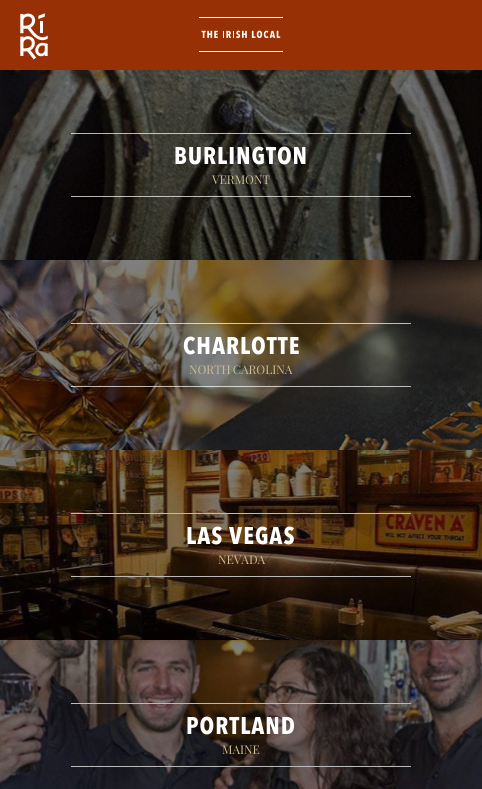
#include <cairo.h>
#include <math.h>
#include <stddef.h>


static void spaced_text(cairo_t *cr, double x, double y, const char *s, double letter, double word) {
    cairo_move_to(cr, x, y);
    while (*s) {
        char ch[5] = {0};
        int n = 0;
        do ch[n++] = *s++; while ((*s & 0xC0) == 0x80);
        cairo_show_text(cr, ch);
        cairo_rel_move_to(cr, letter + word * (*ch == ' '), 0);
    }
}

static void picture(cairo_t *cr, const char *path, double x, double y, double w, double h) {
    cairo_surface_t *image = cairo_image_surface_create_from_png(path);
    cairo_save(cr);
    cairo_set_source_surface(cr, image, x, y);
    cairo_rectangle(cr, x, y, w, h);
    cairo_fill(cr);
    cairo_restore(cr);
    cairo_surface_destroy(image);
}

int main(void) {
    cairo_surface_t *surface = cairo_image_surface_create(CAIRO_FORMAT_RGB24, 482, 789);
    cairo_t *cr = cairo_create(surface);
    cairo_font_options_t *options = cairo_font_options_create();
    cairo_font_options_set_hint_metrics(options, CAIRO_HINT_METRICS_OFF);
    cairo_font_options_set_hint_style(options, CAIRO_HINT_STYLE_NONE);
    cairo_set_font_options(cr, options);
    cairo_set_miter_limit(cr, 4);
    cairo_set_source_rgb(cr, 1, 1, 1);
    cairo_paint(cr);
    cairo_set_source_rgb(cr, 0.592, 0.192, 0.02);
    cairo_rectangle(cr, 0, 0, 482, 70);
    cairo_fill(cr);
    picture(cr, "img1.png", 20, 13, 28, 47);
    picture(cr, "img2.png", 199, 17, 84, 35);
    picture(cr, "img3.png", 0, 70, 482, 190);
    cairo_set_source_rgba(cr, 1, 1, 1, 0.7);
    cairo_rectangle(cr, 71, 133, 340, 1);
    cairo_fill(cr);
    cairo_select_font_face(cr, "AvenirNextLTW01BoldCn", CAIRO_FONT_SLANT_NORMAL, CAIRO_FONT_WEIGHT_BOLD);
    cairo_set_font_size(cr, 24);
    cairo_set_source_rgb(cr, 1, 1, 1);
    spaced_text(cr, 174, 164, "BURLINGTON", 1, 0);
    cairo_select_font_face(cr, "Playfair Display", CAIRO_FONT_SLANT_NORMAL, CAIRO_FONT_WEIGHT_NORMAL);
    cairo_set_font_size(cr, 12);
    cairo_set_source_rgb(cr, 0.792, 0.741, 0.569);
    cairo_move_to(cr, 212, 184);
    cairo_show_text(cr, "VERMONT");
    cairo_set_source_rgba(cr, 1, 1, 1, 0.7);
    cairo_rectangle(cr, 71, 196, 340, 1);
    cairo_fill(cr);
    picture(cr, "img4.png", 0, 260, 482, 190);
    cairo_rectangle(cr, 71, 323, 340, 1);
    cairo_fill(cr);
    cairo_select_font_face(cr, "AvenirNextLTW01BoldCn", CAIRO_FONT_SLANT_NORMAL, CAIRO_FONT_WEIGHT_BOLD);
    cairo_set_font_size(cr, 24);
    cairo_set_source_rgb(cr, 1, 1, 1);
    spaced_text(cr, 183, 354, "CHARLOTTE", 1, 0);
    cairo_select_font_face(cr, "Playfair Display", CAIRO_FONT_SLANT_NORMAL, CAIRO_FONT_WEIGHT_NORMAL);
    cairo_set_font_size(cr, 12);
    cairo_set_source_rgb(cr, 0.792, 0.741, 0.569);
    spaced_text(cr, 189, 374, "NORTH CAROLINA", 0, -1);
    cairo_set_source_rgba(cr, 1, 1, 1, 0.7);
    cairo_rectangle(cr, 71, 386, 340, 1);
    cairo_fill(cr);
    picture(cr, "img5.png", 0, 450, 482, 191);
    cairo_set_source_rgb(cr, 0.733, 0.729, 0.733);
    cairo_rectangle(cr, 71, 513, 340, 1);
    cairo_fill(cr);
    cairo_select_font_face(cr, "AvenirNextLTW01BoldCn", CAIRO_FONT_SLANT_NORMAL, CAIRO_FONT_WEIGHT_BOLD);
    cairo_set_font_size(cr, 24);
    cairo_set_source_rgb(cr, 1, 1, 1);
    spaced_text(cr, 186, 544, "LAS VEGAS", 1, 0);
    cairo_select_font_face(cr, "Playfair Display", CAIRO_FONT_SLANT_NORMAL, CAIRO_FONT_WEIGHT_NORMAL);
    cairo_set_font_size(cr, 12);
    cairo_set_source_rgb(cr, 0.792, 0.741, 0.569);
    cairo_move_to(cr, 218, 564);
    cairo_show_text(cr, "NEVADA");
    cairo_set_source_rgb(cr, 0.733, 0.729, 0.733);
    cairo_rectangle(cr, 71, 576, 340, 1);
    cairo_fill(cr);
    picture(cr, "img6.png", 0, 640, 482, 149);
    cairo_set_source_rgb(cr, 0.729, 0.725, 0.725);
    cairo_rectangle(cr, 71, 703, 340, 1);
    cairo_fill(cr);
    cairo_select_font_face(cr, "AvenirNextLTW01BoldCn", CAIRO_FONT_SLANT_NORMAL, CAIRO_FONT_WEIGHT_BOLD);
    cairo_set_font_size(cr, 24);
    cairo_set_source_rgb(cr, 1, 1, 1);
    spaced_text(cr, 186, 734, "PORTLAND", 1, 0);
    cairo_select_font_face(cr, "Playfair Display", CAIRO_FONT_SLANT_NORMAL, CAIRO_FONT_WEIGHT_NORMAL);
    cairo_set_font_size(cr, 12);
    cairo_set_source_rgb(cr, 0.792, 0.741, 0.569);
    cairo_move_to(cr, 222, 754);
    cairo_show_text(cr, "MAINE");
    cairo_set_source_rgb(cr, 0.729, 0.725, 0.725);
    cairo_rectangle(cr, 71, 766, 340, 1);
    cairo_fill(cr);
    cairo_surface_write_to_png(surface, "page.png");
    cairo_font_options_destroy(options);
    cairo_destroy(cr);
    cairo_surface_destroy(surface);
    return 0;
}
